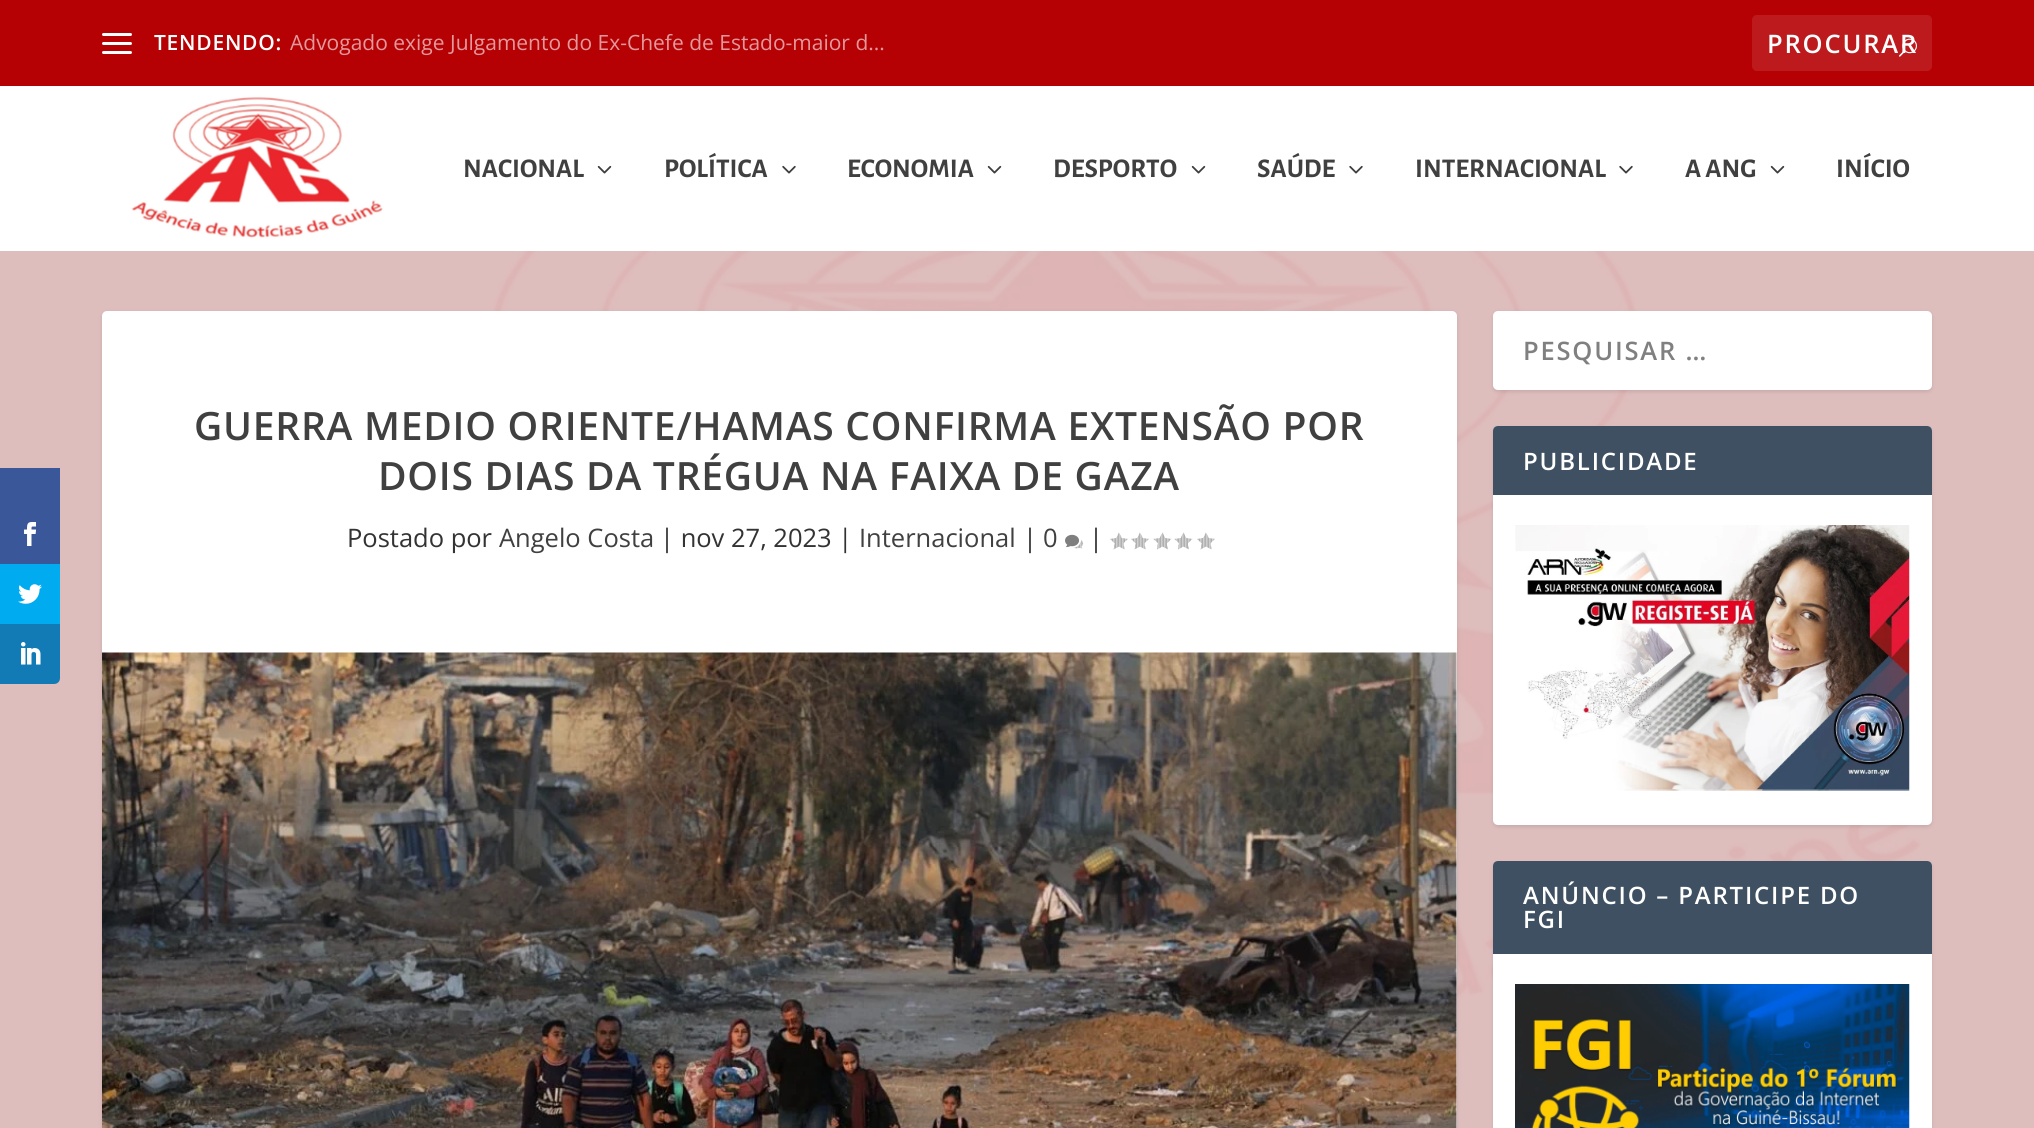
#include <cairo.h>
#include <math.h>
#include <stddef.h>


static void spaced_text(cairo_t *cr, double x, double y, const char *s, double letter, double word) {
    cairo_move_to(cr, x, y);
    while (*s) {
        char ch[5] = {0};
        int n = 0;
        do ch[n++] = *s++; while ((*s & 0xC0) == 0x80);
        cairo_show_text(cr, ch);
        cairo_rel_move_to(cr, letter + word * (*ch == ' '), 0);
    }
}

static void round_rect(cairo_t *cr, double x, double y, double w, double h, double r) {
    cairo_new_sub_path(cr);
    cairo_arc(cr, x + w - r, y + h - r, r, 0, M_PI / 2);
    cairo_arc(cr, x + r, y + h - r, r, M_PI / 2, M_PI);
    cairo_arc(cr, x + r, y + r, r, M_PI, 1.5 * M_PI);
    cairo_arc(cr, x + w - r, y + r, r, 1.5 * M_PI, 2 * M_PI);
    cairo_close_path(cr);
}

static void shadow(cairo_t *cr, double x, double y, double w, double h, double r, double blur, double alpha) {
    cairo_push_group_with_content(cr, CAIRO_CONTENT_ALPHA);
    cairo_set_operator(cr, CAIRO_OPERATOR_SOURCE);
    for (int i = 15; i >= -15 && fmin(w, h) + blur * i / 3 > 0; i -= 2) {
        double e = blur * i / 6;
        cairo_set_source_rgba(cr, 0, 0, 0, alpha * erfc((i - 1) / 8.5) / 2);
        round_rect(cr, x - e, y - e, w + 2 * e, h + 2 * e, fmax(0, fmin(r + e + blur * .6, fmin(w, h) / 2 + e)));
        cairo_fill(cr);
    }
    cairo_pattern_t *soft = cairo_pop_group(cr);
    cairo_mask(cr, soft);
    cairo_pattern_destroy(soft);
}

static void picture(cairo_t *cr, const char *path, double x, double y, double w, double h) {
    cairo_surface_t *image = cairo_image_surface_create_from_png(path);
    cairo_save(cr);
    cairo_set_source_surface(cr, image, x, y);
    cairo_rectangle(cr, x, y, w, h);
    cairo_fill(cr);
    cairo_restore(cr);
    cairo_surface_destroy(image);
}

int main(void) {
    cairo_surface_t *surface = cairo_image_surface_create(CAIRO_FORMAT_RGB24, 2034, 1128);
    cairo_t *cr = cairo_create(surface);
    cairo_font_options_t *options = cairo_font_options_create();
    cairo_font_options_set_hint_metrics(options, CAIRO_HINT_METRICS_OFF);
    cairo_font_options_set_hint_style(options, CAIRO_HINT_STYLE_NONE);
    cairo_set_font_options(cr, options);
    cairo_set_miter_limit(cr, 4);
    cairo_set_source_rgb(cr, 0.871, 0.737, 0.737);
    cairo_paint(cr);
    picture(cr, "img1.png", 0, 251, 2034, 877);
    cairo_set_source_rgb(cr, 0.227, 0.341, 0.604);
    cairo_rectangle(cr, 0, 468, 60, 96);
    cairo_fill(cr);
    picture(cr, "img2.png", 24, 522, 12, 24);
    cairo_set_source_rgb(cr, 0, 0.671, 0.941);
    cairo_rectangle(cr, 0, 564, 60, 60);
    cairo_fill(cr);
    picture(cr, "img3.png", 18, 584, 24, 20);
    cairo_set_source_rgb(cr, 0.071, 0.482, 0.714);
    cairo_new_path(cr);
    cairo_move_to(cr, 0, 624);
    cairo_line_to(cr, 60, 624);
    cairo_line_to(cr, 60, 678);
    cairo_curve_to(cr, 60, 681.5, 57.5, 684, 54, 684);
    cairo_line_to(cr, 0, 684);
    cairo_close_path(cr);
    cairo_fill(cr);
    picture(cr, "img4.png", 21, 642, 20, 23);
    cairo_set_source_rgb(cr, 0.714, 0.004, 0.016);
    cairo_rectangle(cr, 0, 0, 2034, 86);
    cairo_fill(cr);
    cairo_set_source_rgb(cr, 1, 1, 1);
    round_rect(cr, 102, 33, 30, 3, 1.5);
    cairo_fill(cr);
    round_rect(cr, 102, 42, 30, 3, 1.5);
    cairo_fill(cr);
    round_rect(cr, 102, 51, 30, 3, 1.5);
    cairo_fill(cr);
    cairo_select_font_face(cr, "Open Sans SemiBold", CAIRO_FONT_SLANT_NORMAL, CAIRO_FONT_WEIGHT_NORMAL);
    cairo_set_font_size(cr, 21);
    spaced_text(cr, 154, 50, "TENDENDO:", 0.75, 0);
    cairo_select_font_face(cr, "Open Sans", CAIRO_FONT_SLANT_NORMAL, CAIRO_FONT_WEIGHT_NORMAL);
    cairo_set_source_rgb(cr, 0.886, 0.6, 0.608);
    cairo_move_to(cr, 290, 50);
    cairo_show_text(cr, "Advogado exige Julgamento do Ex-Chefe de Estado-maior d...");
    cairo_set_source_rgb(cr, 0.741, 0.102, 0.114);
    round_rect(cr, 1752, 15, 180, 56, 5);
    cairo_fill(cr);
    cairo_select_font_face(cr, "Open Sans SemiBold", CAIRO_FONT_SLANT_NORMAL, CAIRO_FONT_WEIGHT_NORMAL);
    cairo_set_font_size(cr, 25.5);
    cairo_set_source_rgb(cr, 1, 1, 1);
    spaced_text(cr, 1767, 53, "PROCURAR", 1.8, 0);
    picture(cr, "img5.png", 1899, 38, 18, 19);
    cairo_rectangle(cr, 0, 86, 2034, 165);
    cairo_fill(cr);
    picture(cr, "img6.png", 101, 86, 311, 152);
    cairo_select_font_face(cr, "Alegreya Sans", CAIRO_FONT_SLANT_NORMAL, CAIRO_FONT_WEIGHT_BOLD);
    cairo_set_font_size(cr, 27);
    cairo_set_source_rgb(cr, 0.251, 0.251, 0.251);
    cairo_move_to(cr, 463, 177);
    cairo_show_text(cr, "NACIONAL");
    picture(cr, "img7.png", 597, 165, 15, 9);
    cairo_move_to(cr, 664, 177);
    cairo_show_text(cr, "POLÍTICA");
    picture(cr, "img8.png", 782, 165, 14, 9);
    cairo_move_to(cr, 847, 177);
    cairo_show_text(cr, "ECONOMIA");
    picture(cr, "img7.png", 987, 165, 15, 9);
    cairo_move_to(cr, 1053, 177);
    cairo_show_text(cr, "DESPORTO");
    picture(cr, "img7.png", 1191, 165, 15, 9);
    cairo_move_to(cr, 1257, 177);
    cairo_show_text(cr, "SAÚDE");
    picture(cr, "img8.png", 1349, 165, 14, 9);
    cairo_move_to(cr, 1415, 177);
    cairo_show_text(cr, "INTERNACIONAL");
    picture(cr, "img8.png", 1619, 165, 14, 9);
    cairo_move_to(cr, 1685, 177);
    cairo_show_text(cr, "A ANG");
    picture(cr, "img7.png", 1770, 165, 15, 9);
    cairo_move_to(cr, 1836, 177);
    cairo_show_text(cr, "INÍCIO");
    cairo_set_source_rgb(cr, 0, 0, 0);
    shadow(cr, 102, 312, 1355, 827, 5, 2, 0.1);
    cairo_set_source_rgb(cr, 1, 1, 1);
    round_rect(cr, 102, 311, 1355, 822, 5);
    cairo_fill(cr);
    cairo_select_font_face(cr, "Open Sans SemiBold", CAIRO_FONT_SLANT_NORMAL, CAIRO_FONT_WEIGHT_NORMAL);
    cairo_set_font_size(cr, 39);
    cairo_set_source_rgb(cr, 0.251, 0.251, 0.251);
    spaced_text(cr, 194, 440, "GUERRA MEDIO ORIENTE/HAMAS CONFIRMA EXTENSÃO POR", 0.75, 0);
    spaced_text(cr, 378, 490, "DOIS DIAS DA TRÉGUA NA FAIXA DE GAZA", 0.75, 0);
    cairo_select_font_face(cr, "Open Sans", CAIRO_FONT_SLANT_NORMAL, CAIRO_FONT_WEIGHT_NORMAL);
    cairo_set_font_size(cr, 25.5);
    cairo_set_source_rgb(cr, 0.2, 0.2, 0.2);
    cairo_move_to(cr, 347, 547);
    cairo_show_text(cr, "Postado por");
    cairo_set_source_rgb(cr, 0.251, 0.251, 0.251);
    cairo_move_to(cr, 499, 547);
    cairo_show_text(cr, "Angelo Costa");
    cairo_set_source_rgb(cr, 0.2, 0.2, 0.2);
    cairo_move_to(cr, 660, 547);
    cairo_show_text(cr, "| nov 27, 2023 |");
    cairo_set_source_rgb(cr, 0.251, 0.251, 0.251);
    cairo_move_to(cr, 859, 547);
    cairo_show_text(cr, "Internacional");
    cairo_set_source_rgb(cr, 0.2, 0.2, 0.2);
    cairo_move_to(cr, 1023, 547);
    cairo_show_text(cr, "|");
    cairo_set_source_rgb(cr, 0.251, 0.251, 0.251);
    cairo_move_to(cr, 1043, 547);
    cairo_show_text(cr, "0");
    picture(cr, "img9.png", 1065, 534, 18, 15);
    cairo_set_source_rgb(cr, 0.2, 0.2, 0.2);
    cairo_move_to(cr, 1089, 547);
    cairo_show_text(cr, "|");
    picture(cr, "img10.png", 1110, 532, 18, 18);
    picture(cr, "img10.png", 1131, 532, 18, 18);
    picture(cr, "img11.png", 1153, 532, 19, 18);
    picture(cr, "img11.png", 1174, 532, 19, 18);
    picture(cr, "img10.png", 1197, 532, 18, 18);
    picture(cr, "img12.png", 102, 652, 1355, 476);
    cairo_set_source_rgb(cr, 0, 0, 0);
    shadow(cr, 1493, 312, 439, 80, 5, 2, 0.1);
    cairo_set_source_rgb(cr, 1, 1, 1);
    round_rect(cr, 1493, 311, 439, 79, 5);
    cairo_fill(cr);
    cairo_select_font_face(cr, "Open Sans SemiBold", CAIRO_FONT_SLANT_NORMAL, CAIRO_FONT_WEIGHT_NORMAL);
    cairo_set_source_rgb(cr, 0.502, 0.502, 0.502);
    spaced_text(cr, 1523, 360, "PESQUISAR …", 1.8, 0);
    cairo_set_source_rgb(cr, 0, 0, 0);
    shadow(cr, 1493, 428, 439, 399, 5, 2, 0.1);
    cairo_set_source_rgb(cr, 1, 1, 1);
    round_rect(cr, 1493, 426, 439, 399, 5);
    cairo_fill(cr);
    cairo_set_source_rgb(cr, 0.243, 0.314, 0.384);
    cairo_new_path(cr);
    cairo_move_to(cr, 1498, 426);
    cairo_line_to(cr, 1927, 426);
    cairo_curve_to(cr, 1930, 426, 1932, 428, 1932, 431);
    cairo_line_to(cr, 1932, 495);
    cairo_line_to(cr, 1493, 495);
    cairo_line_to(cr, 1493, 431);
    cairo_curve_to(cr, 1493, 428, 1495, 426, 1498, 426);
    cairo_close_path(cr);
    cairo_fill(cr);
    cairo_set_font_size(cr, 24);
    cairo_set_source_rgb(cr, 1, 1, 1);
    spaced_text(cr, 1523, 470, "PUBLICIDADE", 1.8, 0);
    picture(cr, "img13.png", 1515, 525, 395, 266);
    cairo_set_source_rgb(cr, 0, 0, 0);
    shadow(cr, 1493, 863, 439, 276, 5, 2, 0.1);
    cairo_set_source_rgb(cr, 1, 1, 1);
    round_rect(cr, 1493, 861, 439, 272, 5);
    cairo_fill(cr);
    cairo_set_source_rgb(cr, 0.243, 0.314, 0.384);
    cairo_new_path(cr);
    cairo_move_to(cr, 1498, 861);
    cairo_line_to(cr, 1927, 861);
    cairo_curve_to(cr, 1930, 861, 1932, 863, 1932, 866);
    cairo_line_to(cr, 1932, 954);
    cairo_line_to(cr, 1493, 954);
    cairo_line_to(cr, 1493, 866);
    cairo_curve_to(cr, 1493, 863, 1495, 861, 1498, 861);
    cairo_close_path(cr);
    cairo_fill(cr);
    cairo_set_source_rgb(cr, 1, 1, 1);
    spaced_text(cr, 1523, 904, "ANÚNCIO – PARTICIPE DO", 1.8, 0);
    spaced_text(cr, 1523, 928, "FGI", 1.8, 0);
    picture(cr, "img14.png", 1515, 984, 395, 144);
    cairo_surface_write_to_png(surface, "page.png");
    cairo_font_options_destroy(options);
    cairo_destroy(cr);
    cairo_surface_destroy(surface);
    return 0;
}
